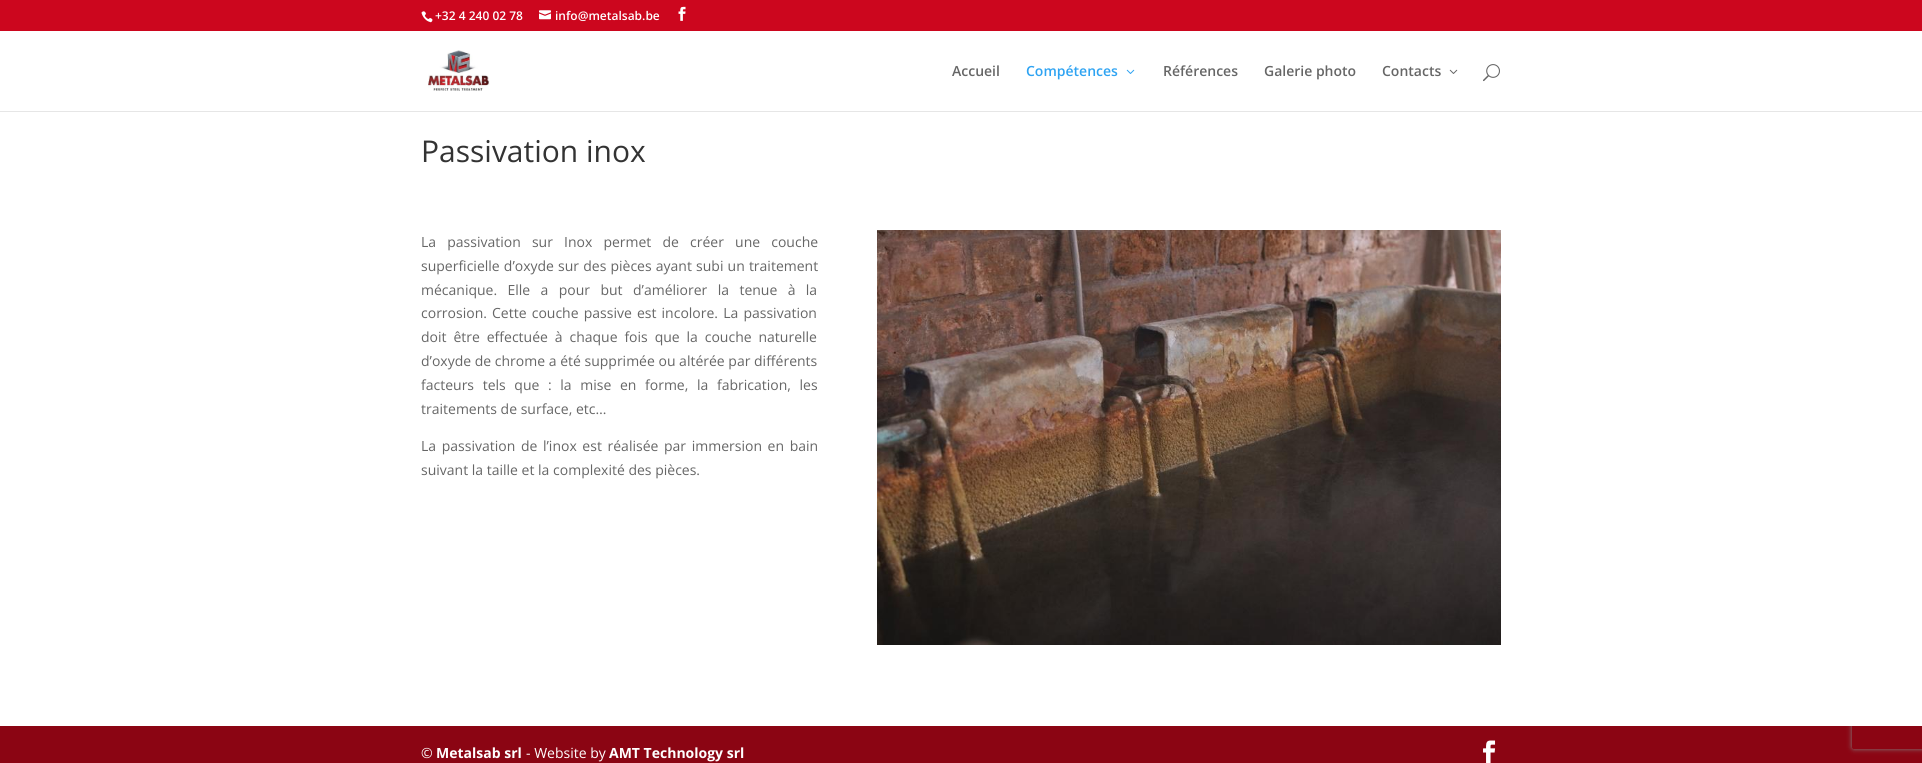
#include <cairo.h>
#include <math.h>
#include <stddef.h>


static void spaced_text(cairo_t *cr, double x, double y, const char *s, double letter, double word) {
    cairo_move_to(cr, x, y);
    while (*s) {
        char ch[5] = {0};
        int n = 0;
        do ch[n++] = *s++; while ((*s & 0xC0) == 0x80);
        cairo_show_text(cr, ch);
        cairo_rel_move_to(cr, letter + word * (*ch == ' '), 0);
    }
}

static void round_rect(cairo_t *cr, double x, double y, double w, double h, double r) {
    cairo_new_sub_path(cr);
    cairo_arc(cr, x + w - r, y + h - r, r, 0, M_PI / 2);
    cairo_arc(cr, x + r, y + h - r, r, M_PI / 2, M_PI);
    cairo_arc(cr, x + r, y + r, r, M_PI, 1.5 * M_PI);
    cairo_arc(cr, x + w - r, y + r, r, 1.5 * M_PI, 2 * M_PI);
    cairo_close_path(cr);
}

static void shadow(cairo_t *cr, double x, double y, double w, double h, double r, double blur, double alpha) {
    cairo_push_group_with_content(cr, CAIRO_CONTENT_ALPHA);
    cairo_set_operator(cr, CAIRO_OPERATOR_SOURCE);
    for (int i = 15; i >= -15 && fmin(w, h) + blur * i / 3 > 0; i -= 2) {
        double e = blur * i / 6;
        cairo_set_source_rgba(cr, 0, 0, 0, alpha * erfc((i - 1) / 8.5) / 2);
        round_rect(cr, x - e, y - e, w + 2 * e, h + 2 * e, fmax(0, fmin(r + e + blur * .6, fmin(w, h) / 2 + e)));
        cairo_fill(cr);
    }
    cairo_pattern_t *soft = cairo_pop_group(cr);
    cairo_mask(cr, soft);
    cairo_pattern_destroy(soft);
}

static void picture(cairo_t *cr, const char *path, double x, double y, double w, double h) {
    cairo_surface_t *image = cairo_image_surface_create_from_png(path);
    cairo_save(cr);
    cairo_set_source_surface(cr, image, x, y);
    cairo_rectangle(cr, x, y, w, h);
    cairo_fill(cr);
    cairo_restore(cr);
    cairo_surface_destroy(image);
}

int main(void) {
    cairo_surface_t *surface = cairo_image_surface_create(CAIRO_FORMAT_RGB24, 1922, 763);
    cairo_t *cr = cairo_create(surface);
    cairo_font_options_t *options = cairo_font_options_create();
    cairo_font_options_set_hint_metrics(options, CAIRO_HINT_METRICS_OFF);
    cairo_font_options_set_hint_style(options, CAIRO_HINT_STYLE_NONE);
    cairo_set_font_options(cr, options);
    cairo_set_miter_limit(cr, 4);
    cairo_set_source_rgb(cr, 0.8, 0.027, 0.118);
    cairo_paint(cr);
    picture(cr, "img1.png", 421, 11, 12, 12);
    cairo_select_font_face(cr, "Open Sans SemiBold", CAIRO_FONT_SLANT_NORMAL, CAIRO_FONT_WEIGHT_NORMAL);
    cairo_set_font_size(cr, 12);
    cairo_set_source_rgb(cr, 1, 1, 1);
    cairo_move_to(cr, 435, 20);
    cairo_show_text(cr, "+32 4 240 02 78");
    picture(cr, "img2.png", 539, 10, 12, 10);
    cairo_move_to(cr, 555, 20);
    cairo_show_text(cr, "info@metalsab.be");
    picture(cr, "img3.png", 678, 6, 8, 15);
    cairo_set_source_rgb(cr, 0.902, 0.902, 0.902);
    cairo_rectangle(cr, 0, 111, 1922, 1);
    cairo_fill(cr);
    cairo_set_source_rgb(cr, 1, 1, 1);
    cairo_rectangle(cr, 0, 31, 1922, 80);
    cairo_fill(cr);
    picture(cr, "img4.png", 428, 50, 62, 41);
    cairo_set_font_size(cr, 14);
    cairo_set_source_rgb(cr, 0.4, 0.4, 0.4);
    cairo_move_to(cr, 952, 76);
    cairo_show_text(cr, "Accueil");
    cairo_set_source_rgb(cr, 0.18, 0.639, 0.949);
    cairo_move_to(cr, 1026, 76);
    cairo_show_text(cr, "Compétences");
    picture(cr, "img5.png", 1126, 69, 9, 5);
    cairo_set_source_rgb(cr, 0.4, 0.4, 0.4);
    cairo_move_to(cr, 1163, 76);
    cairo_show_text(cr, "Références");
    cairo_move_to(cr, 1264, 76);
    cairo_show_text(cr, "Galerie photo");
    cairo_move_to(cr, 1382, 76);
    cairo_show_text(cr, "Contacts");
    picture(cr, "img6.png", 1449, 69, 9, 5);
    picture(cr, "img7.png", 1483, 64, 17, 18);
    cairo_set_source_rgb(cr, 0.545, 0.02, 0.078);
    cairo_rectangle(cr, 0, 726, 1922, 37);
    cairo_fill(cr);
    cairo_save(cr);
    cairo_set_fill_rule(cr, CAIRO_FILL_RULE_EVEN_ODD);
    cairo_new_path(cr);
    cairo_move_to(cr, 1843, 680);
    cairo_line_to(cr, 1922, 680);
    cairo_line_to(cr, 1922, 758);
    cairo_line_to(cr, 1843, 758);
    cairo_close_path(cr);
    cairo_move_to(cr, 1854, 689);
    cairo_line_to(cr, 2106, 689);
    cairo_curve_to(cr, 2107, 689, 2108, 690, 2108, 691);
    cairo_line_to(cr, 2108, 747);
    cairo_curve_to(cr, 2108, 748, 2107, 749, 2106, 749);
    cairo_line_to(cr, 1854, 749);
    cairo_curve_to(cr, 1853, 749, 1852, 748, 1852, 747);
    cairo_line_to(cr, 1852, 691);
    cairo_curve_to(cr, 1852, 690, 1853, 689, 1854, 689);
    cairo_close_path(cr);
    cairo_clip(cr);
    cairo_set_source_rgb(cr, 0.502, 0.502, 0.502);
    shadow(cr, 1852, 689, 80, 60, 2, 2.5, 1);
    cairo_restore(cr);
    cairo_set_source_rgb(cr, 1, 1, 1);
    cairo_rectangle(cr, 0, 112, 1922, 614);
    cairo_fill(cr);
    cairo_select_font_face(cr, "Open Sans", CAIRO_FONT_SLANT_NORMAL, CAIRO_FONT_WEIGHT_NORMAL);
    cairo_set_font_size(cr, 30);
    cairo_set_source_rgb(cr, 0.2, 0.2, 0.2);
    cairo_move_to(cr, 421, 162);
    cairo_show_text(cr, "Passivation inox");
    cairo_set_font_size(cr, 14);
    cairo_set_source_rgb(cr, 0.4, 0.4, 0.4);
    spaced_text(cr, 421, 247, "La passivation sur Inox permet de créer une couche", 0, 7.5);
    spaced_text(cr, 421, 271, "superficielle d’oxyde sur des pièces ayant subi un traitement", 0, 0.5);
    spaced_text(cr, 421, 295, "mécanique. Elle a pour but d’améliorer la tenue à la", 0, 6.75);
    spaced_text(cr, 421, 318, "corrosion. Cette couche passive est incolore. La passivation", 0, 1.5);
    spaced_text(cr, 421, 342, "doit être effectuée à chaque fois que la couche naturelle", 0, 3.25);
    cairo_move_to(cr, 421, 366);
    cairo_show_text(cr, "d’oxyde de chrome a été supprimée ou altérée par différents");
    spaced_text(cr, 421, 390, "facteurs tels que : la mise en forme, la fabrication, les", 0, 5);
    cairo_move_to(cr, 421, 414);
    cairo_show_text(cr, "traitements de surface, etc…");
    spaced_text(cr, 421, 451, "La passivation de l’inox est réalisée par immersion en bain", 0, 2);
    cairo_move_to(cr, 421, 475);
    cairo_show_text(cr, "suivant la taille et la complexité des pièces.");
    picture(cr, "img8.png", 877, 230, 624, 415);
    cairo_set_source_rgb(cr, 1, 1, 1);
    cairo_move_to(cr, 421, 758);
    cairo_show_text(cr, "©");
    cairo_select_font_face(cr, "Open Sans", CAIRO_FONT_SLANT_NORMAL, CAIRO_FONT_WEIGHT_BOLD);
    cairo_move_to(cr, 436, 758);
    cairo_show_text(cr, "Metalsab srl");
    cairo_select_font_face(cr, "Open Sans", CAIRO_FONT_SLANT_NORMAL, CAIRO_FONT_WEIGHT_NORMAL);
    cairo_move_to(cr, 526, 758);
    cairo_show_text(cr, "- Website by");
    cairo_select_font_face(cr, "Open Sans", CAIRO_FONT_SLANT_NORMAL, CAIRO_FONT_WEIGHT_BOLD);
    cairo_move_to(cr, 609, 758);
    cairo_show_text(cr, "AMT Technology srl");
    picture(cr, "img9.png", 1483, 740, 13, 23);
    cairo_surface_write_to_png(surface, "page.png");
    cairo_font_options_destroy(options);
    cairo_destroy(cr);
    cairo_surface_destroy(surface);
    return 0;
}
